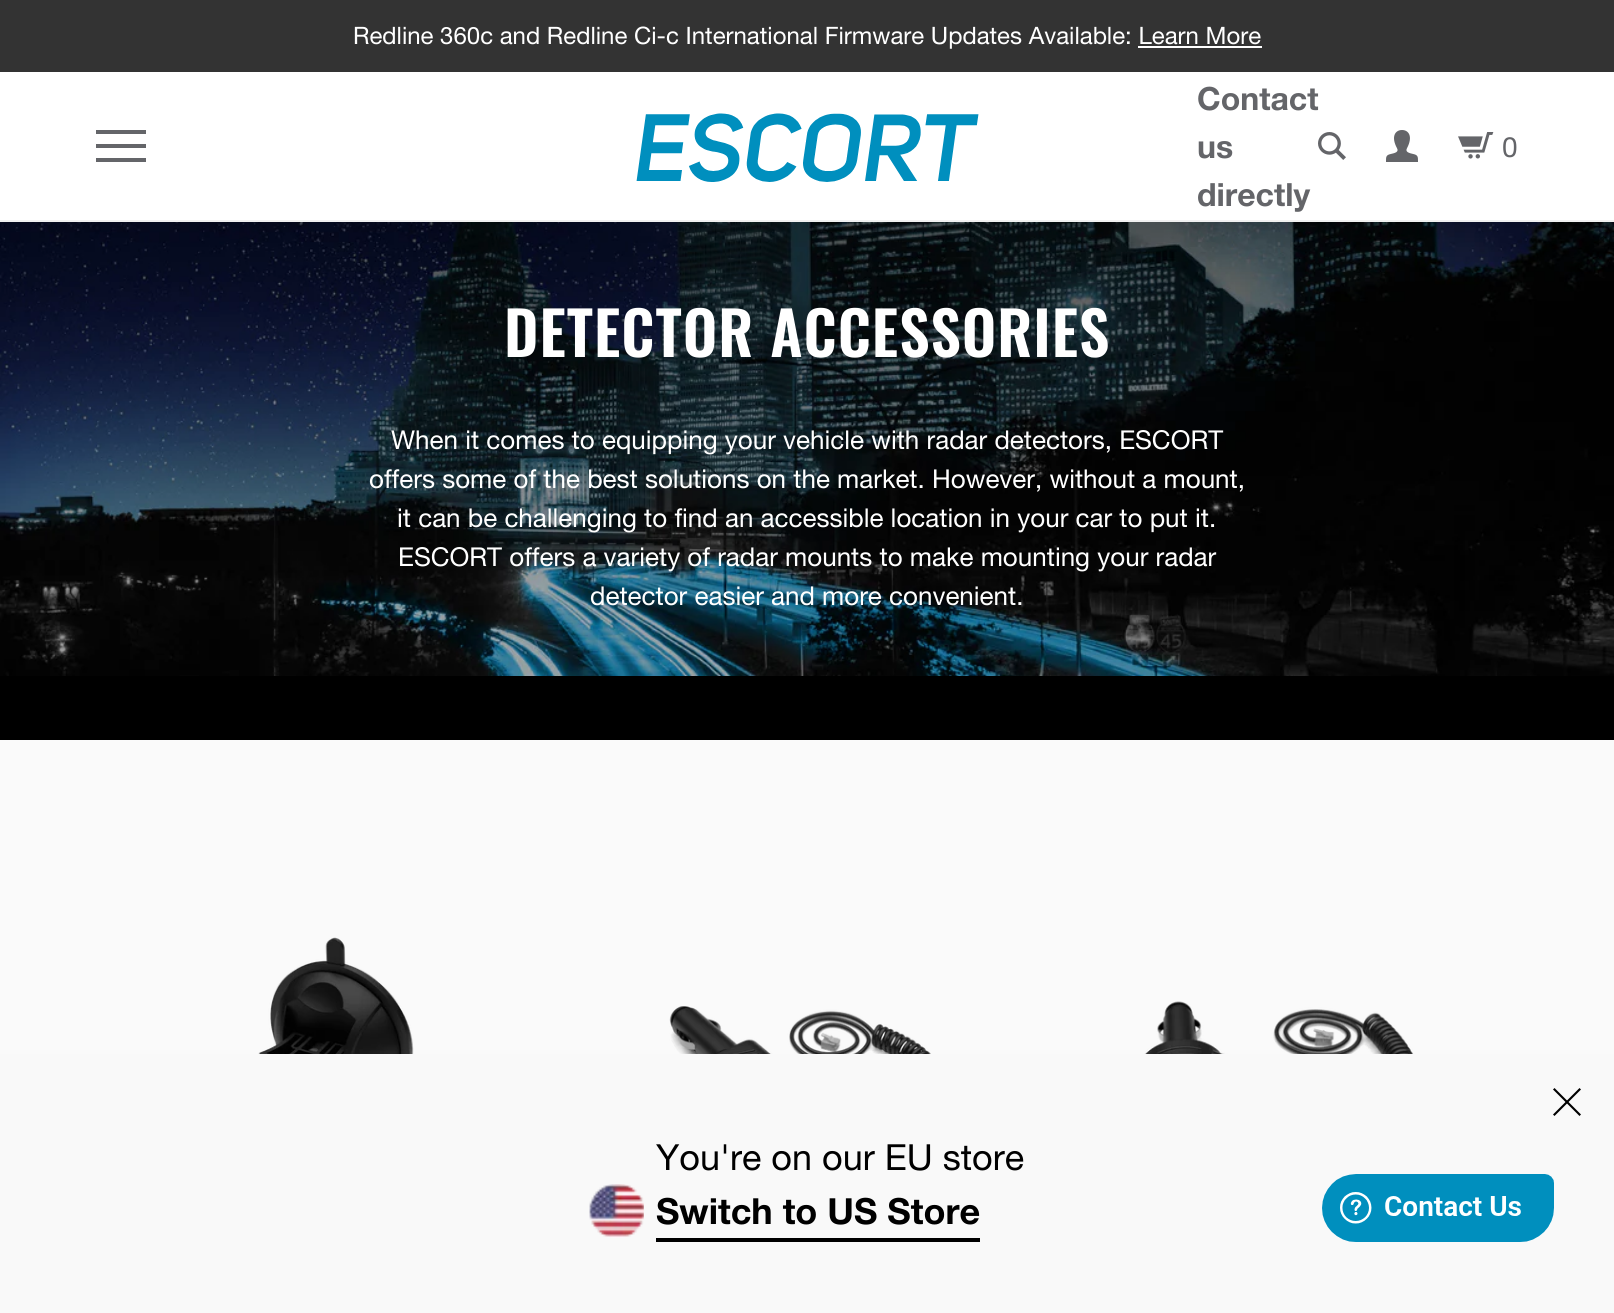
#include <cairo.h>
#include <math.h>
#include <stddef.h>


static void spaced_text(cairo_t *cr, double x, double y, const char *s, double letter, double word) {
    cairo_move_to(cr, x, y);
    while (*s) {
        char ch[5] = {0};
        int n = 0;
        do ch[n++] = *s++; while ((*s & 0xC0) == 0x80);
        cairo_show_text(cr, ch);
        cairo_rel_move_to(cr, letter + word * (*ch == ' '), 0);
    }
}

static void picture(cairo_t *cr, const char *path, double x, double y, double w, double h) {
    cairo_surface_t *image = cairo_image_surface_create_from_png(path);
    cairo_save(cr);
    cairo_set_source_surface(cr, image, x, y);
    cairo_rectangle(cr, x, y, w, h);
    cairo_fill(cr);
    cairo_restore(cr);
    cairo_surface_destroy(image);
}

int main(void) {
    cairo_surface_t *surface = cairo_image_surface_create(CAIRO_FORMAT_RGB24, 1614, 1313);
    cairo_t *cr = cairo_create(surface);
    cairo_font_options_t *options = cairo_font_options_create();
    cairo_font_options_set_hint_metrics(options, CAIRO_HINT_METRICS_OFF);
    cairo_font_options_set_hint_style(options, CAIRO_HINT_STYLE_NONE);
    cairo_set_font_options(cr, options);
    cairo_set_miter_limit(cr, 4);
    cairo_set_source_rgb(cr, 1, 1, 1);
    cairo_paint(cr);
    cairo_set_source_rgb(cr, 0.2, 0.2, 0.2);
    cairo_rectangle(cr, 0, 0, 1614, 72);
    cairo_fill(cr);
    cairo_select_font_face(cr, "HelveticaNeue", CAIRO_FONT_SLANT_NORMAL, CAIRO_FONT_WEIGHT_NORMAL);
    cairo_set_font_size(cr, 24);
    cairo_set_source_rgb(cr, 1, 1, 1);
    cairo_move_to(cr, 353, 44);
    cairo_show_text(cr, "Redline 360c and Redline Ci-c International Firmware Updates Available: Learn More");
    cairo_rectangle(cr, 1138, 46, 124, 2);
    cairo_fill(cr);
    cairo_set_source_rgb(cr, 0.945, 0.945, 0.945);
    cairo_rectangle(cr, 0, 220, 1614, 2);
    cairo_fill(cr);
    cairo_set_source_rgb(cr, 0.392, 0.396, 0.412);
    cairo_rectangle(cr, 96, 130, 50, 4);
    cairo_fill(cr);
    cairo_rectangle(cr, 96, 144, 50, 4);
    cairo_fill(cr);
    cairo_rectangle(cr, 96, 158, 50, 4);
    cairo_fill(cr);
    picture(cr, "img1.png", 636, 113, 343, 69);
    cairo_select_font_face(cr, "HelveticaNeue", CAIRO_FONT_SLANT_NORMAL, CAIRO_FONT_WEIGHT_BOLD);
    cairo_set_font_size(cr, 32);
    cairo_move_to(cr, 1197, 110);
    cairo_show_text(cr, "Contact");
    cairo_move_to(cr, 1197, 158);
    cairo_show_text(cr, "us");
    cairo_move_to(cr, 1197, 206);
    cairo_show_text(cr, "directly");
    picture(cr, "img2.png", 1318, 132, 28, 28);
    picture(cr, "img3.png", 1386, 130, 32, 32);
    picture(cr, "img4.png", 1458, 132, 36, 27);
    cairo_select_font_face(cr, "HelveticaNeue", CAIRO_FONT_SLANT_NORMAL, CAIRO_FONT_WEIGHT_NORMAL);
    cairo_set_font_size(cr, 28);
    cairo_move_to(cr, 1502, 157);
    cairo_show_text(cr, "0");
    cairo_set_source_rgb(cr, 0.98, 0.98, 0.98);
    cairo_rectangle(cr, 0, 740, 1614, 314);
    cairo_fill(cr);
    cairo_set_source_rgb(cr, 0, 0, 0);
    cairo_rectangle(cr, 0, 676, 1614, 64);
    cairo_fill(cr);
    picture(cr, "img5.png", 0, 222, 1614, 454);
    cairo_select_font_face(cr, "Oswald SemiBold", CAIRO_FONT_SLANT_NORMAL, CAIRO_FONT_WEIGHT_NORMAL);
    cairo_set_font_size(cr, 60);
    cairo_set_source_rgb(cr, 1, 1, 1);
    spaced_text(cr, 504, 357, "DETECTOR ACCESSORIES", 1, 0);
    cairo_select_font_face(cr, "HelveticaNeue", CAIRO_FONT_SLANT_NORMAL, CAIRO_FONT_WEIGHT_NORMAL);
    cairo_set_font_size(cr, 26);
    cairo_move_to(cr, 391, 449);
    cairo_show_text(cr, "When it comes to equipping your vehicle with radar detectors, ESCORT");
    cairo_move_to(cr, 369, 488);
    cairo_show_text(cr, "offers some of the best solutions on the market. However, without a mount,");
    cairo_move_to(cr, 397, 527);
    cairo_show_text(cr, "it can be challenging to find an accessible location in your car to put it.");
    cairo_move_to(cr, 398, 566);
    cairo_show_text(cr, "ESCORT offers a variety of radar mounts to make mounting your radar");
    cairo_move_to(cr, 590, 605);
    cairo_show_text(cr, "detector easier and more convenient.");
    picture(cr, "img6.png", 258, 937, 156, 117);
    picture(cr, "img7.png", 669, 1006, 262, 48);
    picture(cr, "img8.png", 1144, 1001, 270, 53);
    cairo_set_source_rgb(cr, 0.973, 0.973, 0.973);
    cairo_rectangle(cr, 0, 1054, 1614, 259);
    cairo_fill(cr);
    cairo_set_source_rgb(cr, 0, 0, 0);
    cairo_new_path(cr);
    cairo_move_to(cr, 1554.5, 1088);
    cairo_line_to(cr, 1581, 1114.5);
    cairo_line_to(cr, 1579.5, 1116);
    cairo_line_to(cr, 1553, 1089.5);
    cairo_close_path(cr);
    cairo_fill(cr);
    cairo_new_path(cr);
    cairo_move_to(cr, 1579.5, 1088);
    cairo_line_to(cr, 1581, 1089.5);
    cairo_line_to(cr, 1554.5, 1116);
    cairo_line_to(cr, 1553, 1114.5);
    cairo_close_path(cr);
    cairo_fill(cr);
    picture(cr, "img9.png", 589, 1184, 55, 54);
    cairo_set_font_size(cr, 36);
    cairo_move_to(cr, 656, 1170);
    cairo_show_text(cr, "You're on our EU store");
    cairo_select_font_face(cr, "HelveticaNeue", CAIRO_FONT_SLANT_NORMAL, CAIRO_FONT_WEIGHT_BOLD);
    cairo_move_to(cr, 656, 1224);
    cairo_show_text(cr, "Switch to US Store");
    cairo_rectangle(cr, 656, 1238, 324, 4);
    cairo_fill(cr);
    picture(cr, "img10.png", 1322, 1174, 232, 68);
    cairo_surface_write_to_png(surface, "page.png");
    cairo_font_options_destroy(options);
    cairo_destroy(cr);
    cairo_surface_destroy(surface);
    return 0;
}
